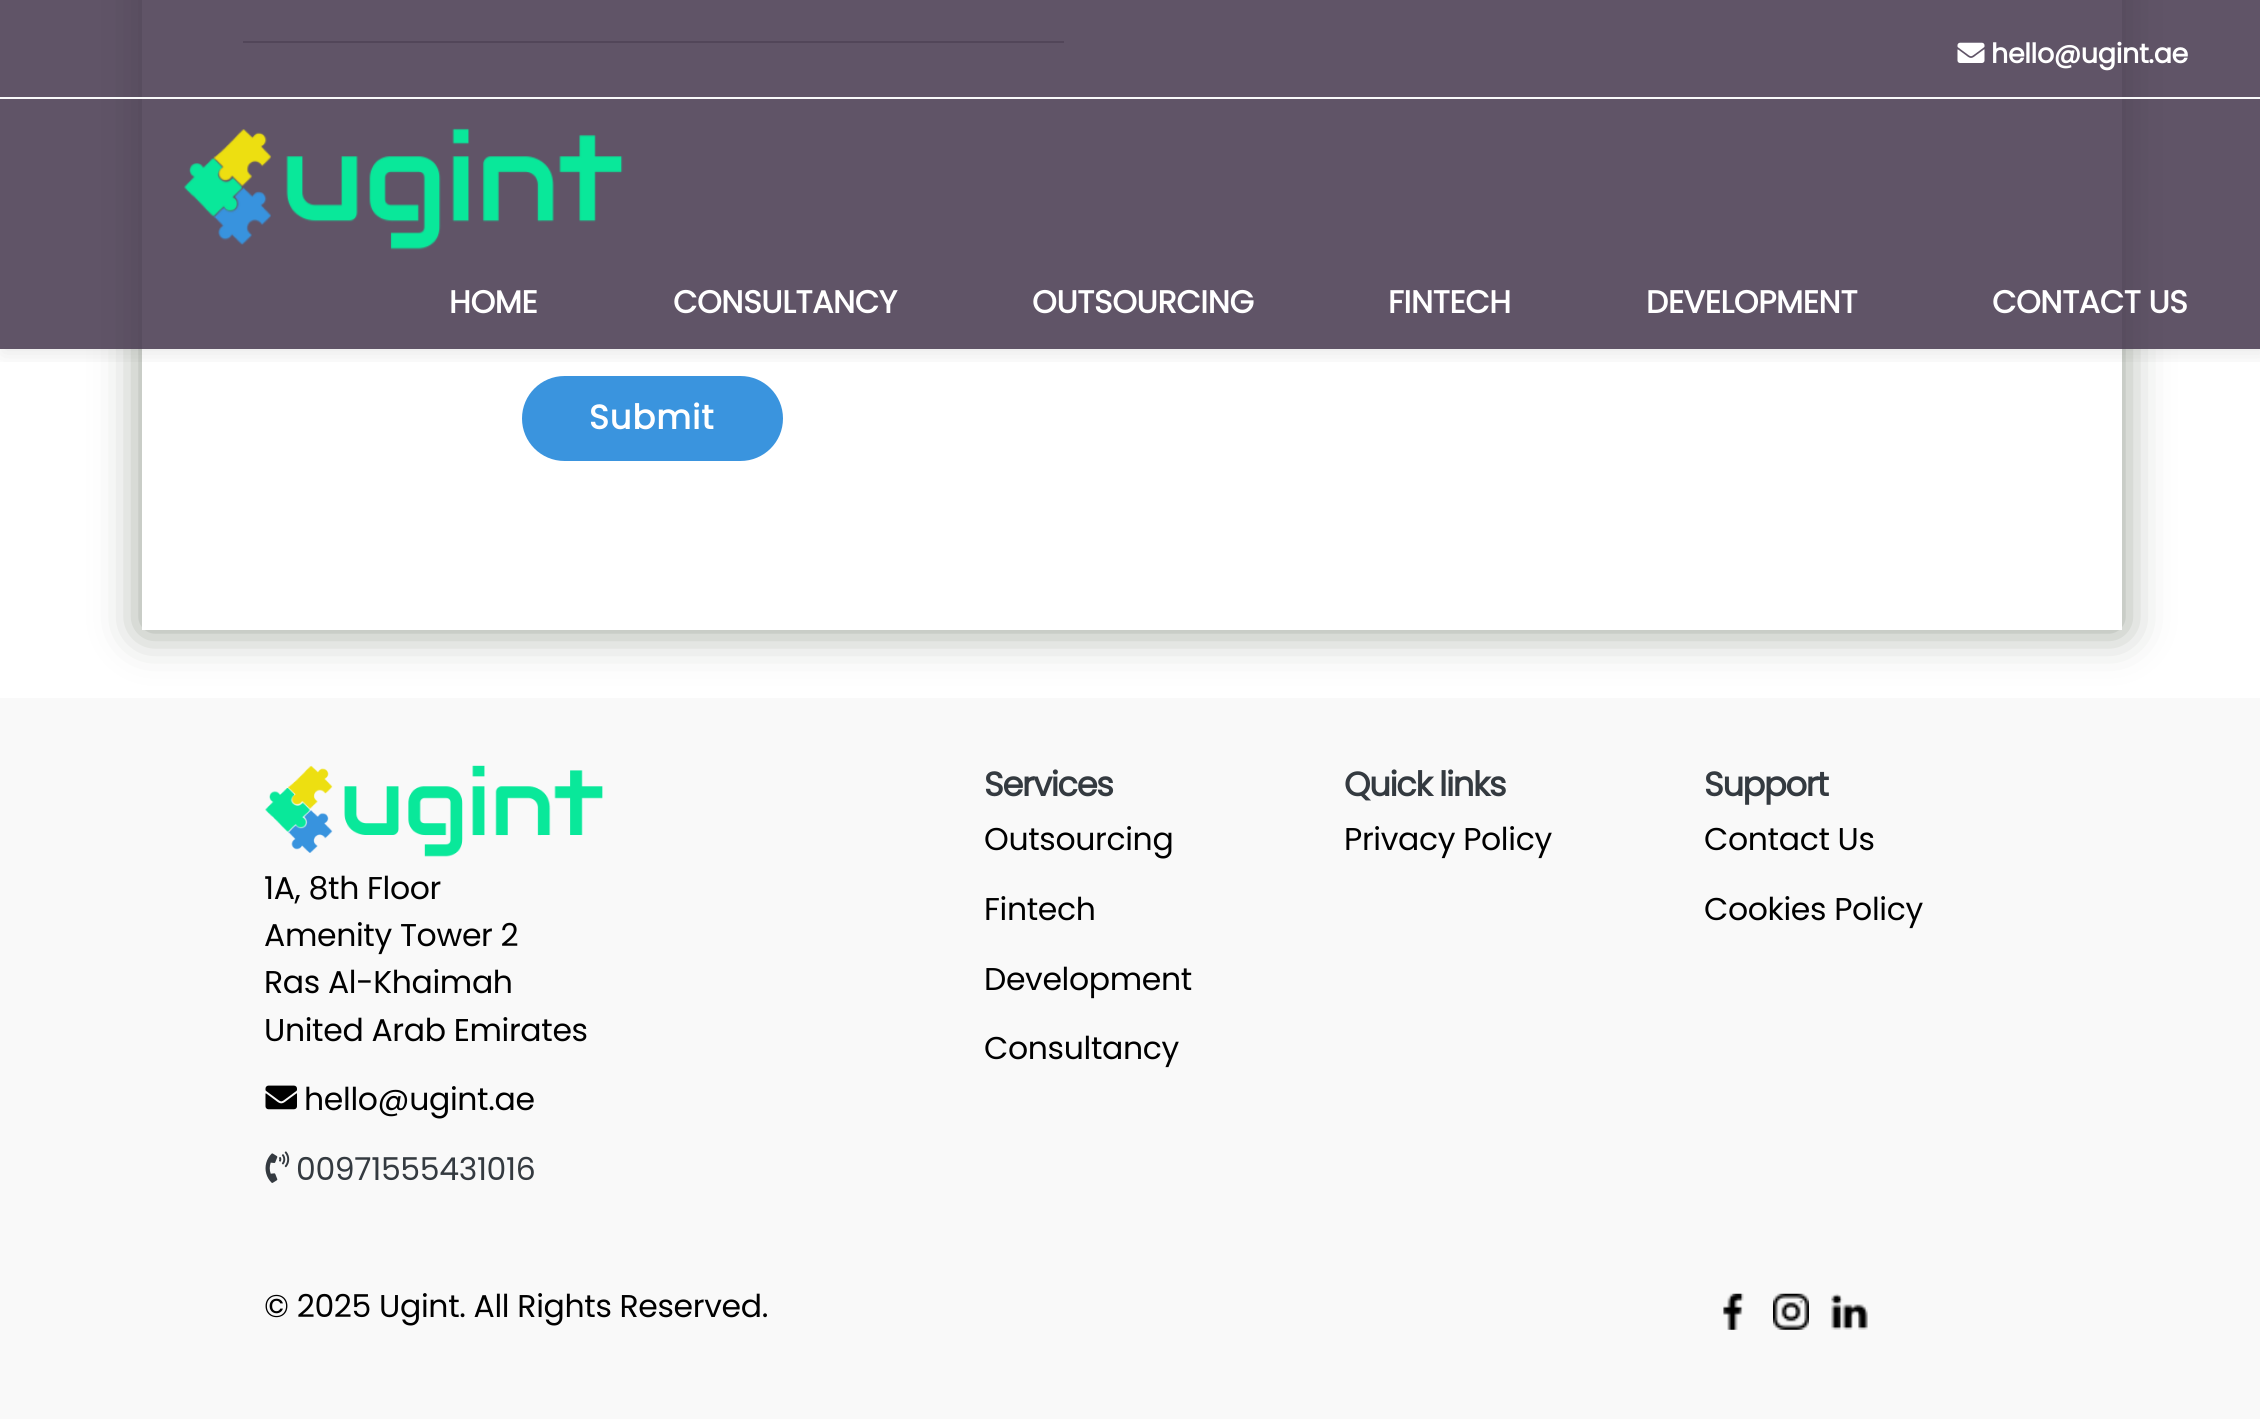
#include <cairo.h>
#include <math.h>
#include <stddef.h>


static void spaced_text(cairo_t *cr, double x, double y, const char *s, double letter, double word) {
    cairo_move_to(cr, x, y);
    while (*s) {
        char ch[5] = {0};
        int n = 0;
        do ch[n++] = *s++; while ((*s & 0xC0) == 0x80);
        cairo_show_text(cr, ch);
        cairo_rel_move_to(cr, letter + word * (*ch == ' '), 0);
    }
}

static void round_rect(cairo_t *cr, double x, double y, double w, double h, double r) {
    cairo_new_sub_path(cr);
    cairo_arc(cr, x + w - r, y + h - r, r, 0, M_PI / 2);
    cairo_arc(cr, x + r, y + h - r, r, M_PI / 2, M_PI);
    cairo_arc(cr, x + r, y + r, r, M_PI, 1.5 * M_PI);
    cairo_arc(cr, x + w - r, y + r, r, 1.5 * M_PI, 2 * M_PI);
    cairo_close_path(cr);
}

static void shadow(cairo_t *cr, double x, double y, double w, double h, double r, double blur, double alpha) {
    cairo_push_group_with_content(cr, CAIRO_CONTENT_ALPHA);
    cairo_set_operator(cr, CAIRO_OPERATOR_SOURCE);
    for (int i = 15; i >= -15 && fmin(w, h) + blur * i / 3 > 0; i -= 2) {
        double e = blur * i / 6;
        cairo_set_source_rgba(cr, 0, 0, 0, alpha * erfc((i - 1) / 8.5) / 2);
        round_rect(cr, x - e, y - e, w + 2 * e, h + 2 * e, fmax(0, fmin(r + e + blur * .6, fmin(w, h) / 2 + e)));
        cairo_fill(cr);
    }
    cairo_pattern_t *soft = cairo_pop_group(cr);
    cairo_mask(cr, soft);
    cairo_pattern_destroy(soft);
}

static void picture(cairo_t *cr, const char *path, double x, double y, double w, double h) {
    cairo_surface_t *image = cairo_image_surface_create_from_png(path);
    cairo_save(cr);
    cairo_set_source_surface(cr, image, x, y);
    cairo_rectangle(cr, x, y, w, h);
    cairo_fill(cr);
    cairo_restore(cr);
    cairo_surface_destroy(image);
}

int main(void) {
    cairo_surface_t *surface = cairo_image_surface_create(CAIRO_FORMAT_RGB24, 2260, 1419);
    cairo_t *cr = cairo_create(surface);
    cairo_font_options_t *options = cairo_font_options_create();
    cairo_font_options_set_hint_metrics(options, CAIRO_HINT_METRICS_OFF);
    cairo_font_options_set_hint_style(options, CAIRO_HINT_STYLE_NONE);
    cairo_set_font_options(cr, options);
    cairo_set_miter_limit(cr, 4);
    cairo_set_source_rgb(cr, 1, 1, 1);
    cairo_paint(cr);
    cairo_set_source_rgb(cr, 0.973, 0.973, 0.973);
    cairo_rectangle(cr, 0, 698, 2260, 721);
    cairo_fill(cr);
    cairo_set_source_rgb(cr, 0.58, 0.612, 0.565);
    shadow(cr, 142, -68, 1980, 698, 0, 22.5, 1);
    cairo_set_source_rgb(cr, 1, 1, 1);
    cairo_rectangle(cr, 142, 0, 1980, 630);
    cairo_fill(cr);
    cairo_set_source_rgb(cr, 0.635, 0.635, 0.635);
    cairo_rectangle(cr, 243, 41, 821, 2);
    cairo_fill(cr);
    cairo_set_source_rgb(cr, 0.227, 0.58, 0.871);
    round_rect(cr, 522, 376, 261, 85, 42.5);
    cairo_fill(cr);
    cairo_save(cr);
    cairo_rectangle(cr, 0, 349, 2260, 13);
    cairo_clip(cr);
    cairo_set_source_rgb(cr, 0, 0, 0);
    shadow(cr, 2, 5, 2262, 348, 0, 11, 0.1);
    cairo_restore(cr);
    cairo_set_source_rgba(cr, 0.267, 0.212, 0.302, 0.85);
    cairo_rectangle(cr, 0, 0, 2260, 349);
    cairo_fill(cr);
    picture(cr, "img1.png", 1957, 42, 28, 21);
    cairo_select_font_face(cr, "Poppins", CAIRO_FONT_SLANT_NORMAL, CAIRO_FONT_WEIGHT_BOLD);
    cairo_set_font_size(cr, 27);
    cairo_set_source_rgb(cr, 1, 1, 1);
    spaced_text(cr, 1991, 63, "hello@ugint.ae", -0.35, 0);
    cairo_set_source_rgb(cr, 0.973, 0.976, 0.98);
    cairo_rectangle(cr, 0, 97, 2260, 2);
    cairo_fill(cr);
    picture(cr, "img2.png", 184, 128, 439, 122);
    cairo_set_font_size(cr, 31.5);
    cairo_set_source_rgb(cr, 1, 1, 1);
    spaced_text(cr, 449, 313, "HOME", -0.35, 0);
    spaced_text(cr, 673, 313, "CONSULTANCY", -0.35, 0);
    spaced_text(cr, 1032, 313, "OUTSOURCING", -0.35, 0);
    spaced_text(cr, 1388, 313, "FINTECH", -0.35, 0);
    spaced_text(cr, 1646, 313, "DEVELOPMENT", -0.35, 0);
    spaced_text(cr, 1992, 313, "CONTACT US", -0.35, 0);
    cairo_set_font_size(cr, 33.75);
    spaced_text(cr, 589, 429, "Submit", 1, 0);
    cairo_set_source_rgb(cr, 0.204, 0.227, 0.251);
    spaced_text(cr, 984, 796, "Services", -1.4, 0);
    cairo_select_font_face(cr, "Poppins", CAIRO_FONT_SLANT_NORMAL, CAIRO_FONT_WEIGHT_NORMAL);
    cairo_set_font_size(cr, 31.5);
    cairo_set_source_rgb(cr, 0, 0, 0);
    spaced_text(cr, 984, 850, "Outsourcing", -0.35, 0);
    spaced_text(cr, 984, 920, "Fintech", -0.35, 0);
    spaced_text(cr, 984, 990, "Development", -0.35, 0);
    spaced_text(cr, 984, 1059, "Consultancy", -0.35, 0);
    cairo_select_font_face(cr, "Poppins", CAIRO_FONT_SLANT_NORMAL, CAIRO_FONT_WEIGHT_BOLD);
    cairo_set_font_size(cr, 33.75);
    cairo_set_source_rgb(cr, 0.204, 0.227, 0.251);
    spaced_text(cr, 1344, 796, "Quick links", -1.4, 0);
    cairo_select_font_face(cr, "Poppins", CAIRO_FONT_SLANT_NORMAL, CAIRO_FONT_WEIGHT_NORMAL);
    cairo_set_font_size(cr, 31.5);
    cairo_set_source_rgb(cr, 0, 0, 0);
    spaced_text(cr, 1344, 850, "Privacy Policy", -0.35, 0);
    cairo_select_font_face(cr, "Poppins", CAIRO_FONT_SLANT_NORMAL, CAIRO_FONT_WEIGHT_BOLD);
    cairo_set_font_size(cr, 33.75);
    cairo_set_source_rgb(cr, 0.204, 0.227, 0.251);
    spaced_text(cr, 1704, 796, "Support", -1.4, 0);
    cairo_select_font_face(cr, "Poppins", CAIRO_FONT_SLANT_NORMAL, CAIRO_FONT_WEIGHT_NORMAL);
    cairo_set_font_size(cr, 31.5);
    cairo_set_source_rgb(cr, 0, 0, 0);
    spaced_text(cr, 1704, 850, "Contact Us", -0.35, 0);
    spaced_text(cr, 1704, 920, "Cookies Policy", -0.35, 0);
    picture(cr, "img3.png", 265, 765, 338, 92);
    spaced_text(cr, 264, 899, "1A, 8th Floor", -0.35, 0);
    spaced_text(cr, 264, 946, "Amenity Tower 2", -0.35, 0);
    spaced_text(cr, 264, 993, "Ras Al-Khaimah", -0.35, 0);
    spaced_text(cr, 264, 1041, "United Arab Emirates", -0.35, 0);
    picture(cr, "img4.png", 265, 1085, 32, 25);
    spaced_text(cr, 304, 1110, "hello@ugint.ae", -0.35, 0);
    picture(cr, "img5.png", 265, 1151, 25, 32);
    cairo_set_source_rgb(cr, 0.204, 0.227, 0.251);
    spaced_text(cr, 296, 1180, "00971555431016", -0.35, 0);
    cairo_set_source_rgb(cr, 0, 0, 0);
    spaced_text(cr, 264, 1317, "© 2025 Ugint. All Rights Reserved.", -0.35, 0);
    picture(cr, "img6.png", 1723, 1293, 21, 37);
    picture(cr, "img7.png", 1773, 1293, 36, 37);
    picture(cr, "img8.png", 1831, 1293, 37, 37);
    cairo_surface_write_to_png(surface, "page.png");
    cairo_font_options_destroy(options);
    cairo_destroy(cr);
    cairo_surface_destroy(surface);
    return 0;
}
